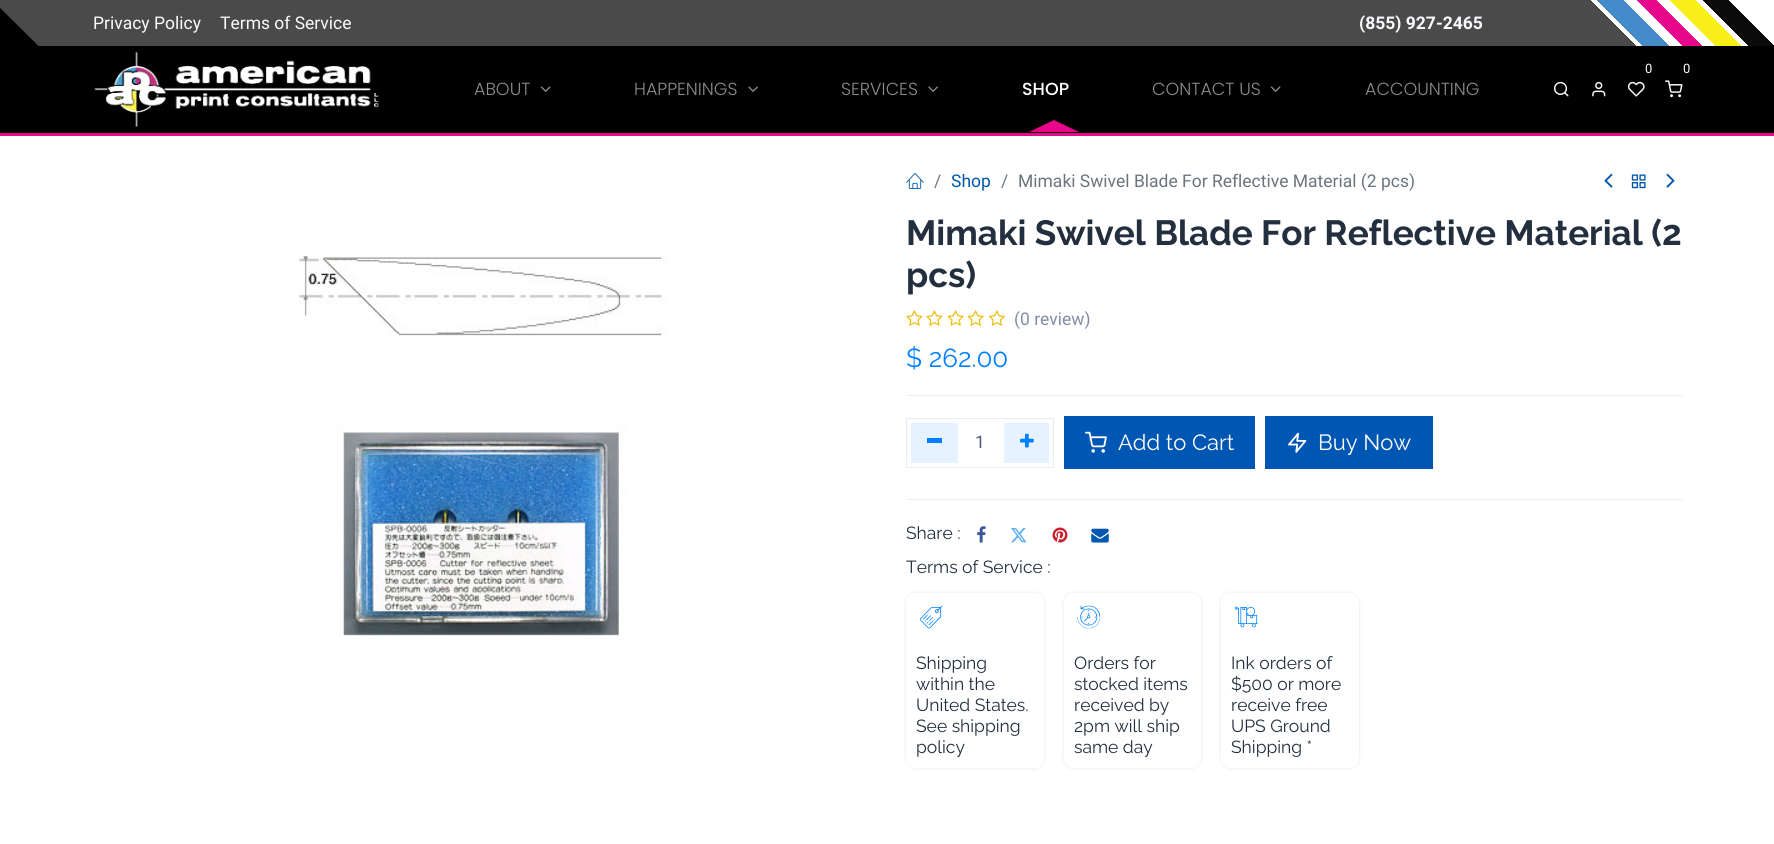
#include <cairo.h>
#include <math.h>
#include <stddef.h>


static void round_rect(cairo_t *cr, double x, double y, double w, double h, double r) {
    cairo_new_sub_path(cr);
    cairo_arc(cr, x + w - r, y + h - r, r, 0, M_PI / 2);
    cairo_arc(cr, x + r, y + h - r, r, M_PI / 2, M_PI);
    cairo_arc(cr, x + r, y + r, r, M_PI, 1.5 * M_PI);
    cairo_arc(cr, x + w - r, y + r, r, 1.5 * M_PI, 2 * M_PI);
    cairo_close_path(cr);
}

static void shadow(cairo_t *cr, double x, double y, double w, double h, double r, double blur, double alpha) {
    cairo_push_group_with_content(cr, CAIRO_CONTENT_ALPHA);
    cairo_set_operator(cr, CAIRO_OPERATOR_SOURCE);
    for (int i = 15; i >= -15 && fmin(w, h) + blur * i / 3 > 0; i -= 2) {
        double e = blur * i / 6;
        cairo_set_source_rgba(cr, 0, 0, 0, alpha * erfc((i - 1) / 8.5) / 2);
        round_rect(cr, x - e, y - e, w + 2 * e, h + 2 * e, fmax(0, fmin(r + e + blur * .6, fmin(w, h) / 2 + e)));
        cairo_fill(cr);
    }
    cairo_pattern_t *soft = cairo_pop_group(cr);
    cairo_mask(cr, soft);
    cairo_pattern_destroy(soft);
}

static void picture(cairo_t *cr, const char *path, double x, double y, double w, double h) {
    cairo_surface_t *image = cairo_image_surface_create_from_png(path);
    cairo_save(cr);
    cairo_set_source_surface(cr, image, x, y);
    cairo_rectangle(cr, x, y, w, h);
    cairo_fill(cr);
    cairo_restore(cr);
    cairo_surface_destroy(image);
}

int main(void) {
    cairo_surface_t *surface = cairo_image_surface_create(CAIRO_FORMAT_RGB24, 1774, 844);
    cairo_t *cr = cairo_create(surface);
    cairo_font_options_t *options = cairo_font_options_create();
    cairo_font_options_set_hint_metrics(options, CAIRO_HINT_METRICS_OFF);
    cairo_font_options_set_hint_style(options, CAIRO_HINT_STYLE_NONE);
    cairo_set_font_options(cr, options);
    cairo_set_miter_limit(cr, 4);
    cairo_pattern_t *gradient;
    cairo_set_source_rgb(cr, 1, 1, 1);
    cairo_paint(cr);
    cairo_set_source_rgb(cr, 0.29, 0.29, 0.29);
    cairo_rectangle(cr, 0, 0, 1636, 46);
    cairo_fill(cr);
    cairo_set_source_rgb(cr, 0, 0, 0);
    cairo_rectangle(cr, 0, 46, 1774, 87);
    cairo_fill(cr);
    cairo_new_path(cr);
    cairo_move_to(cr, 75, 82);
    cairo_line_to(cr, -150, 82);
    cairo_line_to(cr, -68, 0);
    cairo_line_to(cr, -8, 0);
    cairo_close_path(cr);
    cairo_fill(cr);
    cairo_select_font_face(cr, "Roboto", CAIRO_FONT_SLANT_NORMAL, CAIRO_FONT_WEIGHT_NORMAL);
    cairo_set_font_size(cr, 17.5);
    cairo_set_source_rgb(cr, 0.976, 0.98, 0.996);
    cairo_move_to(cr, 93, 29);
    cairo_show_text(cr, "Privacy Policy");
    cairo_move_to(cr, 220, 29);
    cairo_show_text(cr, "Terms of Service");
    cairo_select_font_face(cr, "Roboto", CAIRO_FONT_SLANT_NORMAL, CAIRO_FONT_WEIGHT_BOLD);
    cairo_move_to(cr, 1359, 29);
    cairo_show_text(cr, "(855) 927-2465");
    gradient = cairo_pattern_create_linear(1651, -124, 1321, 206);
    cairo_pattern_add_color_stop_rgba(gradient, 0, 1, 1, 1, 1);
    cairo_pattern_add_color_stop_rgba(gradient, 0.07, 1, 1, 1, 1);
    cairo_pattern_add_color_stop_rgba(gradient, 0.07, 0.043, 0.043, 0.043, 1);
    cairo_pattern_add_color_stop_rgba(gradient, 0.11, 0.043, 0.043, 0.043, 1);
    cairo_pattern_add_color_stop_rgba(gradient, 0.11, 1, 1, 1, 1);
    cairo_pattern_add_color_stop_rgba(gradient, 0.12, 1, 1, 1, 1);
    cairo_pattern_add_color_stop_rgba(gradient, 0.12, 0.973, 0.933, 0.094, 1);
    cairo_pattern_add_color_stop_rgba(gradient, 0.16, 0.973, 0.933, 0.094, 1);
    cairo_pattern_add_color_stop_rgba(gradient, 0.16, 1, 1, 1, 1);
    cairo_pattern_add_color_stop_rgba(gradient, 0.18, 1, 1, 1, 1);
    cairo_pattern_add_color_stop_rgba(gradient, 0.18, 0.91, 0.024, 0.541, 1);
    cairo_pattern_add_color_stop_rgba(gradient, 0.21, 0.91, 0.024, 0.541, 1);
    cairo_pattern_add_color_stop_rgba(gradient, 0.21, 1, 1, 1, 1);
    cairo_pattern_add_color_stop_rgba(gradient, 0.23, 1, 1, 1, 1);
    cairo_pattern_add_color_stop_rgba(gradient, 0.23, 0.267, 0.545, 0.792, 1);
    cairo_pattern_add_color_stop_rgba(gradient, 0.27, 0.267, 0.545, 0.792, 1);
    cairo_pattern_add_color_stop_rgba(gradient, 0.27, 1, 1, 1, 1);
    cairo_pattern_add_color_stop_rgba(gradient, 0.28, 1, 1, 1, 1);
    cairo_pattern_add_color_stop_rgba(gradient, 0.28, 1, 1, 1, 0);
    cairo_pattern_add_color_stop_rgba(gradient, 1, 0, 0, 0, 0);
    cairo_set_source(cr, gradient);
    cairo_pattern_destroy(gradient);
    cairo_rectangle(cr, 1591, 0, 183, 46);
    cairo_fill(cr);
    cairo_set_source_rgb(cr, 0.91, 0.024, 0.541);
    cairo_rectangle(cr, 0, 133, 1774, 3);
    cairo_fill(cr);
    picture(cr, "img1.png", 94, 51, 285, 76);
    cairo_select_font_face(cr, "Roboto", CAIRO_FONT_SLANT_NORMAL, CAIRO_FONT_WEIGHT_NORMAL);
    cairo_set_font_size(cr, 13);
    cairo_set_source_rgb(cr, 1, 1, 1);
    cairo_move_to(cr, 1645, 73);
    cairo_show_text(cr, "0");
    picture(cr, "img2.png", 1627, 81, 18, 16);
    cairo_move_to(cr, 1683, 73);
    cairo_show_text(cr, "0");
    picture(cr, "img3.png", 1665, 80, 18, 18);
    picture(cr, "img4.png", 1553, 81, 16, 16);
    picture(cr, "img5.png", 1592, 81, 14, 16);
    cairo_select_font_face(cr, "Poppins Light", CAIRO_FONT_SLANT_NORMAL, CAIRO_FONT_WEIGHT_NORMAL);
    cairo_set_font_size(cr, 17.5);
    cairo_set_source_rgb(cr, 0.549, 0.549, 0.549);
    cairo_move_to(cr, 474, 95);
    cairo_show_text(cr, "ABOUT");
    picture(cr, "img6.png", 540, 86, 11, 6);
    cairo_move_to(cr, 634, 95);
    cairo_show_text(cr, "HAPPENINGS");
    picture(cr, "img7.png", 748, 86, 10, 6);
    cairo_move_to(cr, 841, 95);
    cairo_show_text(cr, "SERVICES");
    picture(cr, "img7.png", 928, 86, 10, 6);
    cairo_select_font_face(cr, "Poppins Medium", CAIRO_FONT_SLANT_NORMAL, CAIRO_FONT_WEIGHT_NORMAL);
    cairo_set_source_rgb(cr, 1, 1, 1);
    cairo_move_to(cr, 1022, 95);
    cairo_show_text(cr, "SHOP");
    cairo_set_source_rgb(cr, 0.91, 0.024, 0.541);
    cairo_new_path(cr);
    cairo_move_to(cr, 1079, 132);
    cairo_line_to(cr, 1029, 132);
    cairo_line_to(cr, 1054, 120);
    cairo_close_path(cr);
    cairo_fill(cr);
    cairo_select_font_face(cr, "Poppins Light", CAIRO_FONT_SLANT_NORMAL, CAIRO_FONT_WEIGHT_NORMAL);
    cairo_set_source_rgb(cr, 0.549, 0.549, 0.549);
    cairo_move_to(cr, 1152, 95);
    cairo_show_text(cr, "CONTACT US");
    picture(cr, "img6.png", 1270, 86, 11, 6);
    cairo_move_to(cr, 1365, 95);
    cairo_show_text(cr, "ACCOUNTING");
    picture(cr, "img8.png", 298, 255, 369, 381);
    picture(cr, "img9.png", 906, 173, 18, 16);
    cairo_select_font_face(cr, "Roboto", CAIRO_FONT_SLANT_NORMAL, CAIRO_FONT_WEIGHT_NORMAL);
    cairo_set_source_rgb(cr, 0.424, 0.459, 0.49);
    cairo_move_to(cr, 934, 187);
    cairo_show_text(cr, "/");
    cairo_set_source_rgb(cr, 0, 0.341, 0.678);
    cairo_move_to(cr, 951, 187);
    cairo_show_text(cr, "Shop");
    cairo_set_source_rgb(cr, 0.424, 0.459, 0.49);
    cairo_move_to(cr, 1001, 187);
    cairo_show_text(cr, "/");
    cairo_move_to(cr, 1018, 187);
    cairo_show_text(cr, "Mimaki Swivel Blade For Reflective Material (2 pcs)");
    picture(cr, "img10.png", 1604, 173, 9, 15);
    picture(cr, "img11.png", 1631, 174, 15, 15);
    picture(cr, "img12.png", 1666, 173, 9, 15);
    cairo_select_font_face(cr, "Raleway", CAIRO_FONT_SLANT_NORMAL, CAIRO_FONT_WEIGHT_BOLD);
    cairo_set_font_size(cr, 35);
    cairo_set_source_rgb(cr, 0.137, 0.184, 0.243);
    cairo_move_to(cr, 906, 245);
    cairo_show_text(cr, "Mimaki Swivel Blade For Reflective Material (2");
    cairo_move_to(cr, 906, 287);
    cairo_show_text(cr, "pcs)");
    picture(cr, "img13.png", 906, 310, 17, 16);
    picture(cr, "img13.png", 926, 310, 17, 16);
    picture(cr, "img14.png", 947, 310, 17, 16);
    picture(cr, "img14.png", 967, 310, 17, 16);
    picture(cr, "img15.png", 988, 310, 17, 16);
    cairo_select_font_face(cr, "Roboto", CAIRO_FONT_SLANT_NORMAL, CAIRO_FONT_WEIGHT_NORMAL);
    cairo_set_font_size(cr, 17.5);
    cairo_set_source_rgb(cr, 0.51, 0.549, 0.639);
    cairo_move_to(cr, 1014, 325);
    cairo_show_text(cr, "(0 review)");
    cairo_select_font_face(cr, "Raleway", CAIRO_FONT_SLANT_NORMAL, CAIRO_FONT_WEIGHT_NORMAL);
    cairo_set_font_size(cr, 26);
    cairo_set_source_rgb(cr, 0, 0.502, 1);
    cairo_move_to(cr, 906, 367);
    cairo_show_text(cr, "$ 262.00");
    cairo_set_source_rgb(cr, 0.933, 0.937, 0.949);
    cairo_rectangle(cr, 906, 395, 777, 1);
    cairo_fill(cr);
    cairo_rectangle(cr, 906.5, 418.5, 147, 49);
    cairo_set_source_rgb(cr, 0.914, 0.925, 0.937);
    cairo_set_line_width(cr, 1);
    cairo_stroke(cr);
    cairo_set_source_rgb(cr, 0.902, 0.949, 1);
    cairo_rectangle(cr, 911, 423, 47, 40);
    cairo_fill(cr);
    cairo_set_source_rgb(cr, 0, 0.502, 1);
    cairo_rectangle(cr, 927, 438, 15, 5);
    cairo_fill(cr);
    cairo_select_font_face(cr, "Roboto", CAIRO_FONT_SLANT_NORMAL, CAIRO_FONT_WEIGHT_NORMAL);
    cairo_set_font_size(cr, 17.5);
    cairo_set_source_rgb(cr, 0.302, 0.357, 0.486);
    cairo_move_to(cr, 975, 448);
    cairo_show_text(cr, "1");
    cairo_set_source_rgb(cr, 0.902, 0.949, 1);
    cairo_rectangle(cr, 1004, 423, 45, 40);
    cairo_fill(cr);
    picture(cr, "img16.png", 1020, 433, 14, 15);
    cairo_set_source_rgb(cr, 0, 0.337, 0.702);
    cairo_rectangle(cr, 1064, 416, 191, 53);
    cairo_fill(cr);
    picture(cr, "img17.png", 1085, 431, 22, 22);
    cairo_select_font_face(cr, "Raleway", CAIRO_FONT_SLANT_NORMAL, CAIRO_FONT_WEIGHT_NORMAL);
    cairo_set_font_size(cr, 22);
    cairo_set_source_rgb(cr, 1, 1, 1);
    cairo_move_to(cr, 1118, 450);
    cairo_show_text(cr, "Add to Cart");
    cairo_set_source_rgb(cr, 0, 0.337, 0.702);
    cairo_rectangle(cr, 1265, 416, 168, 53);
    cairo_fill(cr);
    picture(cr, "img18.png", 1288, 432, 19, 21);
    cairo_set_source_rgb(cr, 1, 1, 1);
    cairo_move_to(cr, 1318, 450);
    cairo_show_text(cr, "Buy Now");
    cairo_set_source_rgb(cr, 0.933, 0.937, 0.949);
    cairo_rectangle(cr, 906, 499, 777, 1);
    cairo_fill(cr);
    cairo_set_font_size(cr, 17.5);
    cairo_set_source_rgb(cr, 0.137, 0.184, 0.243);
    cairo_move_to(cr, 906, 539);
    cairo_show_text(cr, "Share :");
    picture(cr, "img19.png", 977, 526, 9, 17);
    picture(cr, "img20.png", 1011, 528, 16, 15);
    picture(cr, "img21.png", 1052, 527, 16, 16);
    picture(cr, "img22.png", 1091, 528, 18, 15);
    cairo_move_to(cr, 906, 573);
    cairo_show_text(cr, "Terms of Service :");
    cairo_save(cr);
    cairo_set_fill_rule(cr, CAIRO_FILL_RULE_EVEN_ODD);
    cairo_new_path(cr);
    cairo_move_to(cr, 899, 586);
    cairo_line_to(cr, 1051, 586);
    cairo_line_to(cr, 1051, 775);
    cairo_line_to(cr, 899, 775);
    cairo_close_path(cr);
    cairo_move_to(cr, 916, 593);
    cairo_line_to(cr, 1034, 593);
    cairo_curve_to(cr, 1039.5, 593, 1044, 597.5, 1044, 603);
    cairo_line_to(cr, 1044, 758);
    cairo_curve_to(cr, 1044, 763.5, 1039.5, 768, 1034, 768);
    cairo_line_to(cr, 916, 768);
    cairo_curve_to(cr, 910.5, 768, 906, 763.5, 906, 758);
    cairo_line_to(cr, 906, 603);
    cairo_curve_to(cr, 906, 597.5, 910.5, 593, 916, 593);
    cairo_close_path(cr);
    cairo_clip(cr);
    cairo_set_source_rgb(cr, 0, 0, 0);
    shadow(cr, 906, 593, 138, 175, 10, 2, 0.1);
    cairo_restore(cr);
    picture(cr, "img23.png", 919, 605, 24, 24);
    cairo_move_to(cr, 916, 669);
    cairo_show_text(cr, "Shipping");
    cairo_move_to(cr, 916, 690);
    cairo_show_text(cr, "within the");
    cairo_move_to(cr, 916, 711);
    cairo_show_text(cr, "United States.");
    cairo_move_to(cr, 916, 732);
    cairo_show_text(cr, "See shipping");
    cairo_move_to(cr, 916, 753);
    cairo_show_text(cr, "policy");
    cairo_save(cr);
    cairo_set_fill_rule(cr, CAIRO_FILL_RULE_EVEN_ODD);
    cairo_new_path(cr);
    cairo_move_to(cr, 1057, 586);
    cairo_line_to(cr, 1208, 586);
    cairo_line_to(cr, 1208, 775);
    cairo_line_to(cr, 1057, 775);
    cairo_close_path(cr);
    cairo_move_to(cr, 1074, 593);
    cairo_line_to(cr, 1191, 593);
    cairo_curve_to(cr, 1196.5, 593, 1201, 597.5, 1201, 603);
    cairo_line_to(cr, 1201, 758);
    cairo_curve_to(cr, 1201, 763.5, 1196.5, 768, 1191, 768);
    cairo_line_to(cr, 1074, 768);
    cairo_curve_to(cr, 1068.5, 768, 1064, 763.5, 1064, 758);
    cairo_line_to(cr, 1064, 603);
    cairo_curve_to(cr, 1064, 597.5, 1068.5, 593, 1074, 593);
    cairo_close_path(cr);
    cairo_clip(cr);
    cairo_set_source_rgb(cr, 0, 0, 0);
    shadow(cr, 1064, 593, 137, 175, 10, 2, 0.1);
    cairo_restore(cr);
    picture(cr, "img24.png", 1077, 605, 24, 24);
    cairo_move_to(cr, 1074, 669);
    cairo_show_text(cr, "Orders for");
    cairo_move_to(cr, 1074, 690);
    cairo_show_text(cr, "stocked items");
    cairo_move_to(cr, 1074, 711);
    cairo_show_text(cr, "received by");
    cairo_move_to(cr, 1074, 732);
    cairo_show_text(cr, "2pm will ship");
    cairo_move_to(cr, 1074, 753);
    cairo_show_text(cr, "same day");
    cairo_save(cr);
    cairo_set_fill_rule(cr, CAIRO_FILL_RULE_EVEN_ODD);
    cairo_new_path(cr);
    cairo_move_to(cr, 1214, 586);
    cairo_line_to(cr, 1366, 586);
    cairo_line_to(cr, 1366, 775);
    cairo_line_to(cr, 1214, 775);
    cairo_close_path(cr);
    cairo_move_to(cr, 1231, 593);
    cairo_line_to(cr, 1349, 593);
    cairo_curve_to(cr, 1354.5, 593, 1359, 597.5, 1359, 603);
    cairo_line_to(cr, 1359, 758);
    cairo_curve_to(cr, 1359, 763.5, 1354.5, 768, 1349, 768);
    cairo_line_to(cr, 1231, 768);
    cairo_curve_to(cr, 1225.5, 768, 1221, 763.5, 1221, 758);
    cairo_line_to(cr, 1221, 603);
    cairo_curve_to(cr, 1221, 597.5, 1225.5, 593, 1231, 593);
    cairo_close_path(cr);
    cairo_clip(cr);
    cairo_set_source_rgb(cr, 0, 0, 0);
    shadow(cr, 1221, 593, 138, 175, 10, 2, 0.1);
    cairo_restore(cr);
    picture(cr, "img25.png", 1234, 606, 24, 22);
    cairo_move_to(cr, 1231, 669);
    cairo_show_text(cr, "Ink orders of");
    cairo_move_to(cr, 1231, 690);
    cairo_show_text(cr, "$500 or more");
    cairo_move_to(cr, 1231, 711);
    cairo_show_text(cr, "receive free");
    cairo_move_to(cr, 1231, 732);
    cairo_show_text(cr, "UPS Ground");
    cairo_move_to(cr, 1231, 753);
    cairo_show_text(cr, "Shipping *");
    cairo_surface_write_to_png(surface, "page.png");
    cairo_font_options_destroy(options);
    cairo_destroy(cr);
    cairo_surface_destroy(surface);
    return 0;
}
